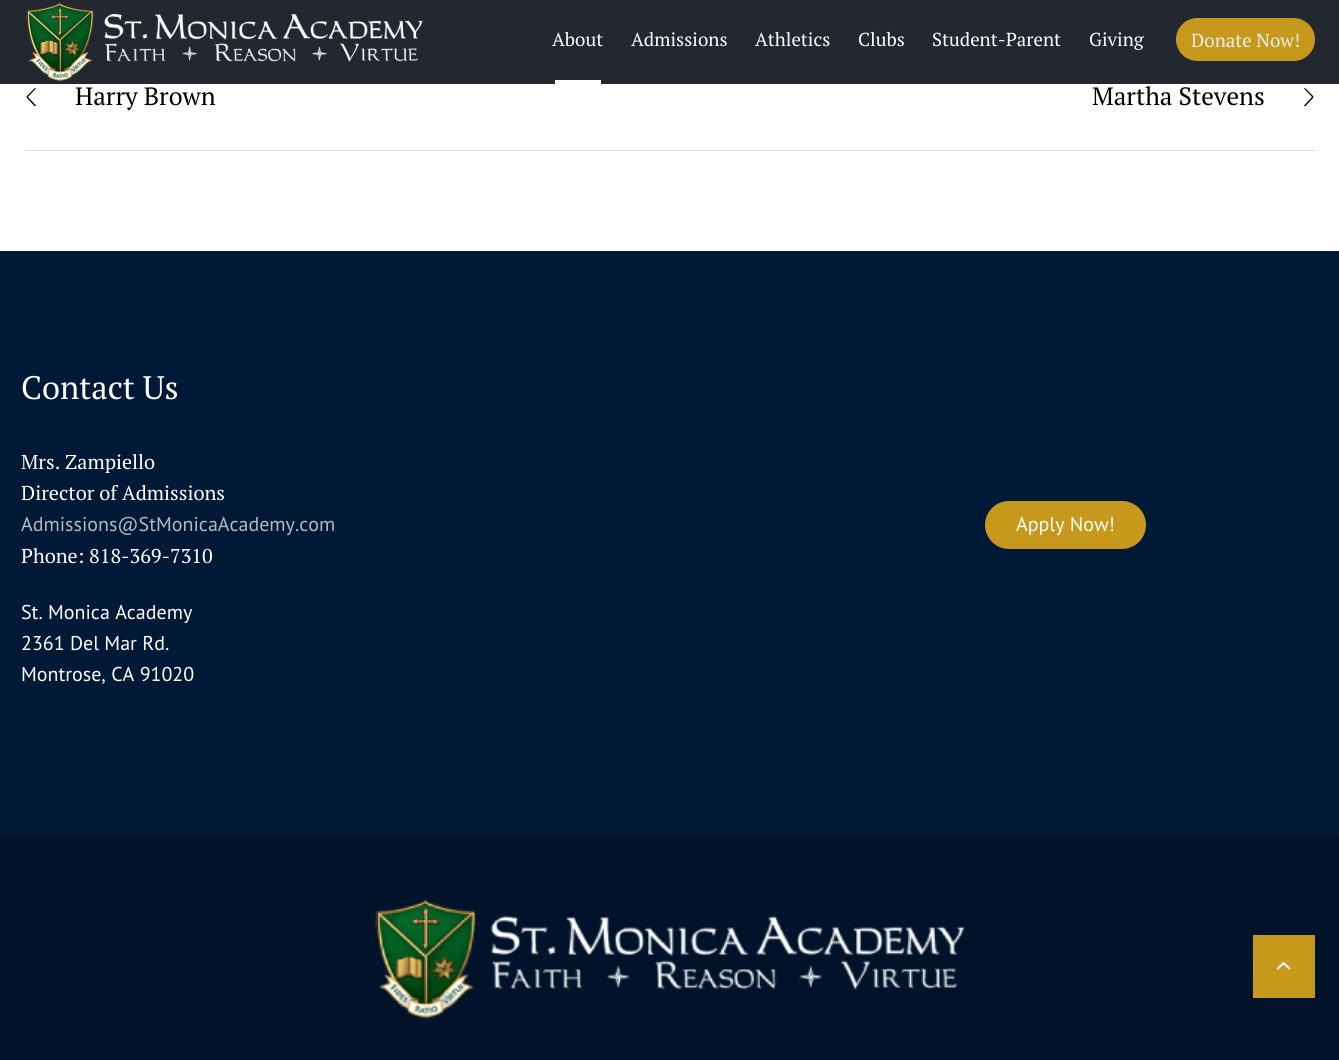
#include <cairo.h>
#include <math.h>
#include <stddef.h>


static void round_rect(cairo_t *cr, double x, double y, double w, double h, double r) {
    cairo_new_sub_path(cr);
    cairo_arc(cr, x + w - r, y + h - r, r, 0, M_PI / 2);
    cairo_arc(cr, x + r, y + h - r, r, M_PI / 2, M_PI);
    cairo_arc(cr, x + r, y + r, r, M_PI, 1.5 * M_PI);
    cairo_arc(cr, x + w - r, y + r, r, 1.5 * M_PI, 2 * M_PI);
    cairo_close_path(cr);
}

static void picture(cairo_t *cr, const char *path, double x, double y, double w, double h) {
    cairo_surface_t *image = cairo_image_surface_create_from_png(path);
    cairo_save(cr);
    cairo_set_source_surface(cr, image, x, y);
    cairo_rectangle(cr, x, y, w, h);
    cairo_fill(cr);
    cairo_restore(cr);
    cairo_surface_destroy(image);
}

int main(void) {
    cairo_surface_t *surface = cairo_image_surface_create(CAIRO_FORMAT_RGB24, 1339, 1060);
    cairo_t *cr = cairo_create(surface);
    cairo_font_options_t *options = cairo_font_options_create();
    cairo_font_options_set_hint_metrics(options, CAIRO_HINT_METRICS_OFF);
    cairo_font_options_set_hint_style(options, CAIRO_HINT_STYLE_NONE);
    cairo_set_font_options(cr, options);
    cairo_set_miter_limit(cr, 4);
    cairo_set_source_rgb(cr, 0, 0.098, 0.212);
    cairo_paint(cr);
    cairo_set_source_rgb(cr, 0.133, 0.153, 0.188);
    cairo_rectangle(cr, 0, 0, 1339, 84);
    cairo_fill(cr);
    picture(cr, "img1.png", 26, 2, 397, 79);
    cairo_select_font_face(cr, "PT Serif", CAIRO_FONT_SLANT_NORMAL, CAIRO_FONT_WEIGHT_NORMAL);
    cairo_set_font_size(cr, 18.75);
    cairo_set_source_rgb(cr, 1, 1, 1);
    cairo_move_to(cr, 552, 46);
    cairo_show_text(cr, "About");
    cairo_move_to(cr, 631, 46);
    cairo_show_text(cr, "Admissions");
    cairo_move_to(cr, 755, 46);
    cairo_show_text(cr, "Athletics");
    cairo_move_to(cr, 858, 46);
    cairo_show_text(cr, "Clubs");
    cairo_move_to(cr, 932, 46);
    cairo_show_text(cr, "Student-Parent");
    cairo_move_to(cr, 1089, 46);
    cairo_show_text(cr, "Giving");
    cairo_rectangle(cr, 555, 80, 46, 4);
    cairo_fill(cr);
    cairo_set_source_rgb(cr, 0.776, 0.596, 0.106);
    round_rect(cr, 1176, 18, 139, 43, 21.5);
    cairo_fill(cr);
    cairo_set_source_rgb(cr, 0.941, 0.941, 0.953);
    cairo_move_to(cr, 1191, 47);
    cairo_show_text(cr, "Donate Now!");
    cairo_set_source_rgb(cr, 1, 1, 1);
    cairo_rectangle(cr, 0, 84, 1339, 167);
    cairo_fill(cr);
    cairo_set_source_rgb(cr, 0.871, 0.871, 0.871);
    cairo_rectangle(cr, 25, 150, 1290, 1);
    cairo_fill(cr);
    cairo_set_source_rgb(cr, 0, 0, 0);
    cairo_new_path(cr);
    cairo_move_to(cr, 27.5, 96.5);
    cairo_line_to(cr, 36, 105.5);
    cairo_line_to(cr, 35, 106.5);
    cairo_line_to(cr, 26.5, 97.5);
    cairo_close_path(cr);
    cairo_fill(cr);
    cairo_new_path(cr);
    cairo_move_to(cr, 36, 88.5);
    cairo_line_to(cr, 27.5, 97.5);
    cairo_line_to(cr, 26.5, 96.5);
    cairo_line_to(cr, 35, 88);
    cairo_close_path(cr);
    cairo_fill(cr);
    cairo_set_font_size(cr, 25);
    cairo_move_to(cr, 75, 105);
    cairo_show_text(cr, "Harry Brown");
    cairo_move_to(cr, 1092, 105);
    cairo_show_text(cr, "Martha Stevens");
    cairo_new_path(cr);
    cairo_move_to(cr, 1305, 88);
    cairo_line_to(cr, 1313.5, 96.5);
    cairo_line_to(cr, 1312.5, 97.5);
    cairo_line_to(cr, 1304, 88.5);
    cairo_close_path(cr);
    cairo_fill(cr);
    cairo_new_path(cr);
    cairo_move_to(cr, 1313.5, 97.5);
    cairo_line_to(cr, 1305, 106.5);
    cairo_line_to(cr, 1304, 105.5);
    cairo_line_to(cr, 1312.5, 96.5);
    cairo_close_path(cr);
    cairo_fill(cr);
    cairo_set_font_size(cr, 32.5);
    cairo_set_source_rgb(cr, 1, 1, 1);
    cairo_move_to(cr, 21, 399);
    cairo_show_text(cr, "Contact Us");
    cairo_set_font_size(cr, 20);
    cairo_move_to(cr, 21, 469);
    cairo_show_text(cr, "Mrs. Zampiello");
    cairo_move_to(cr, 21, 500);
    cairo_show_text(cr, "Director of Admissions");
    cairo_select_font_face(cr, "PT Sans", CAIRO_FONT_SLANT_NORMAL, CAIRO_FONT_WEIGHT_NORMAL);
    cairo_set_source_rgb(cr, 0.702, 0.729, 0.765);
    cairo_move_to(cr, 21, 531);
    cairo_show_text(cr, "Admissions@StMonicaAcademy.com");
    cairo_select_font_face(cr, "PT Serif", CAIRO_FONT_SLANT_NORMAL, CAIRO_FONT_WEIGHT_NORMAL);
    cairo_set_source_rgb(cr, 1, 1, 1);
    cairo_move_to(cr, 21, 563);
    cairo_show_text(cr, "Phone: 818-369-7310");
    cairo_select_font_face(cr, "PT Sans", CAIRO_FONT_SLANT_NORMAL, CAIRO_FONT_WEIGHT_NORMAL);
    cairo_move_to(cr, 21, 619);
    cairo_show_text(cr, "St. Monica Academy");
    cairo_move_to(cr, 21, 650);
    cairo_show_text(cr, "2361 Del Mar Rd.");
    cairo_move_to(cr, 21, 681);
    cairo_show_text(cr, "Montrose, CA 91020");
    cairo_set_source_rgb(cr, 0.776, 0.596, 0.106);
    round_rect(cr, 985, 501, 161, 48, 24);
    cairo_fill(cr);
    cairo_set_source_rgb(cr, 1, 1, 1);
    cairo_move_to(cr, 1016, 531);
    cairo_show_text(cr, "Apply Now!");
    cairo_set_source_rgb(cr, 0, 0.078, 0.165);
    cairo_rectangle(cr, 0, 835, 1339, 225);
    cairo_fill(cr);
    cairo_set_source_rgb(cr, 0.776, 0.596, 0.106);
    cairo_rectangle(cr, 1253, 935, 62, 63);
    cairo_fill(cr);
    picture(cr, "img2.png", 1276, 961, 15, 9);
    picture(cr, "img3.png", 375, 898, 590, 121);
    cairo_surface_write_to_png(surface, "page.png");
    cairo_font_options_destroy(options);
    cairo_destroy(cr);
    cairo_surface_destroy(surface);
    return 0;
}
